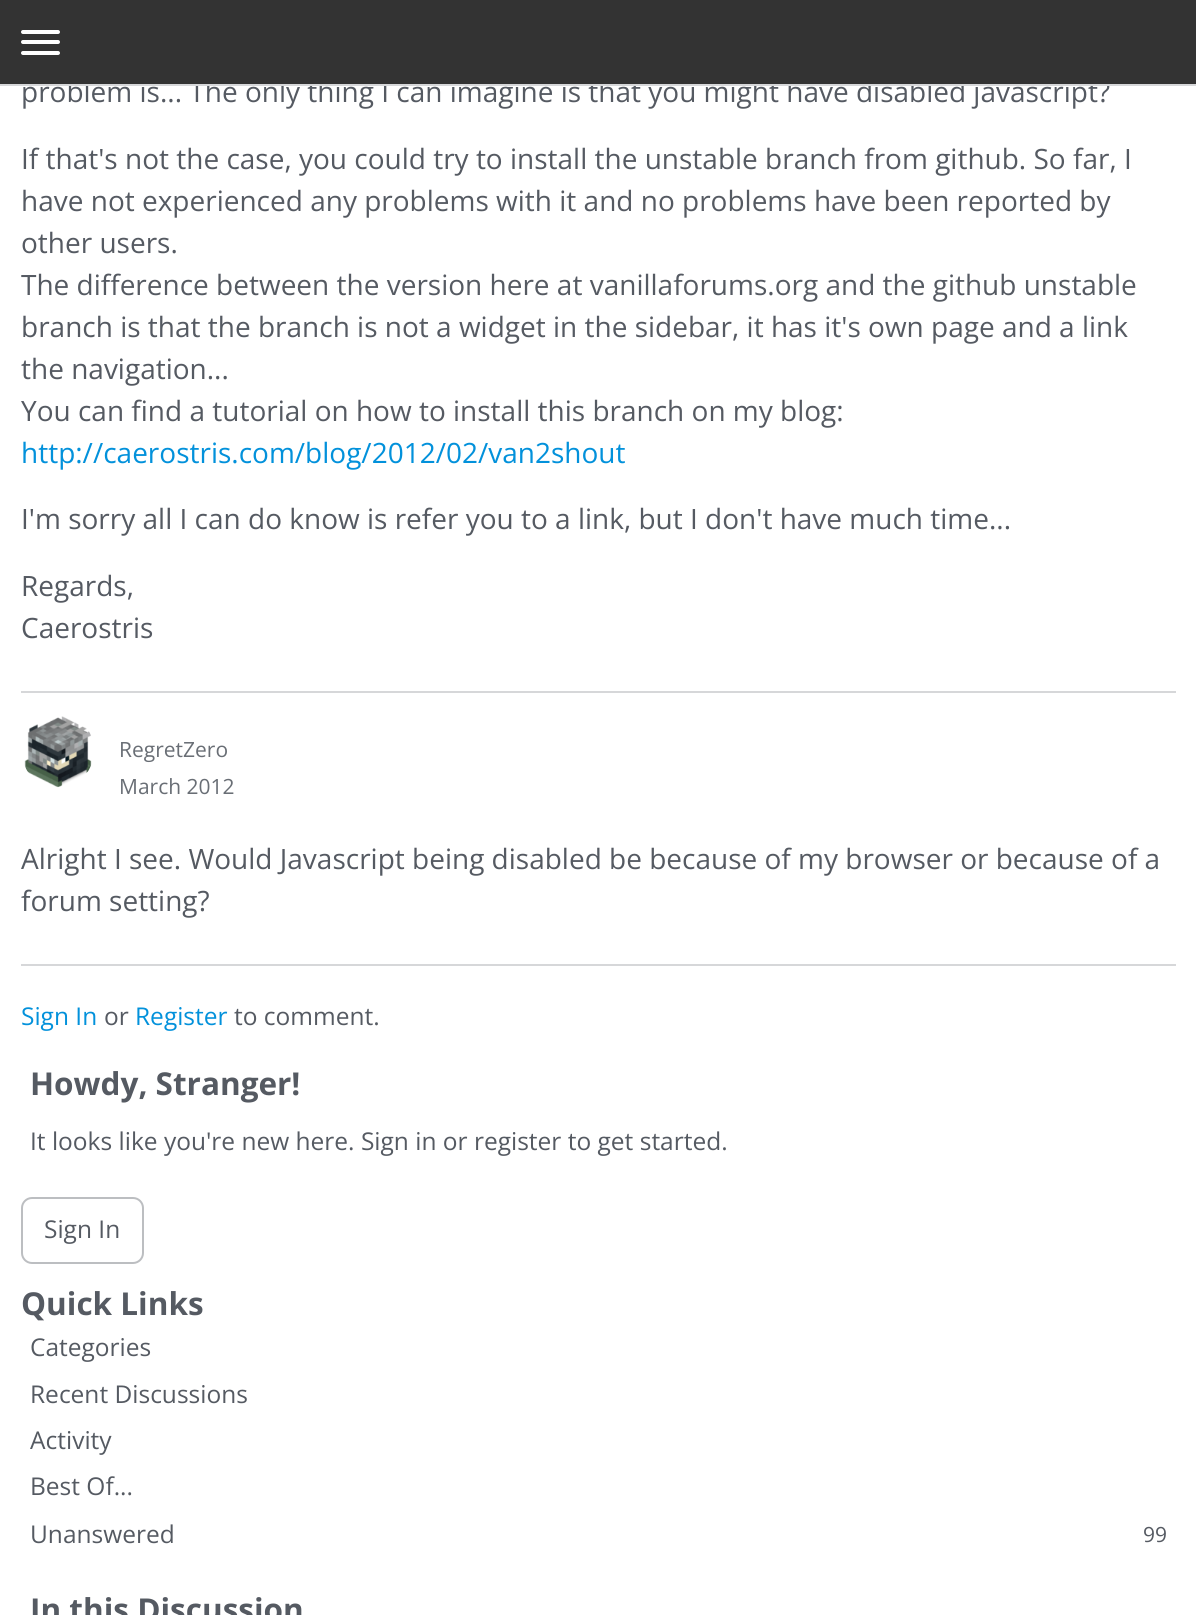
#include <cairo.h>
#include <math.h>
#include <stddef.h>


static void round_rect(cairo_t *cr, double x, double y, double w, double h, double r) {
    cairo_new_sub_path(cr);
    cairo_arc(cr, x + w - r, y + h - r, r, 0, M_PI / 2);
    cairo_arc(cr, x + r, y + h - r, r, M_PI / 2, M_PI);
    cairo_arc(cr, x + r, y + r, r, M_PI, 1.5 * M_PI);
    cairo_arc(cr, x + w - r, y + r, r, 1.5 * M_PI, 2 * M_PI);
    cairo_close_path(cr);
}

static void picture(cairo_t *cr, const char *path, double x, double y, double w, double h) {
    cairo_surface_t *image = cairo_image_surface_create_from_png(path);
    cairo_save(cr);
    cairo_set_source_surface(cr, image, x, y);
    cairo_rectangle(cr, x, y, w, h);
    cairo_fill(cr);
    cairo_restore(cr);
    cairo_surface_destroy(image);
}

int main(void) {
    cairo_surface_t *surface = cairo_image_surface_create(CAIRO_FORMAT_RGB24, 1196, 1615);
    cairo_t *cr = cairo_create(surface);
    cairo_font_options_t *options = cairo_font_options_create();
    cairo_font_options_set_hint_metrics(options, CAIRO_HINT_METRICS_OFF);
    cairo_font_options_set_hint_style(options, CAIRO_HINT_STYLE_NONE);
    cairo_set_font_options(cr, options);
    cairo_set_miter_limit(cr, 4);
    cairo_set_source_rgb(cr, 1, 1, 1);
    cairo_paint(cr);
    cairo_select_font_face(cr, "Open Sans", CAIRO_FONT_SLANT_NORMAL, CAIRO_FONT_WEIGHT_NORMAL);
    cairo_set_font_size(cr, 28);
    cairo_set_source_rgb(cr, 0.333, 0.353, 0.384);
    cairo_move_to(cr, 21, 102);
    cairo_show_text(cr, "problem is... The only thing I can imagine is that you might have disabled javascript?");
    cairo_set_source_rgb(cr, 0.2, 0.2, 0.2);
    cairo_rectangle(cr, 0, 0, 1196, 84);
    cairo_fill(cr);
    cairo_set_source_rgb(cr, 0.839, 0.843, 0.851);
    cairo_rectangle(cr, 0, 84, 1196, 2);
    cairo_fill(cr);
    cairo_set_source_rgb(cr, 1, 1, 1);
    round_rect(cr, 21, 40, 39, 4, 2);
    cairo_fill(cr);
    round_rect(cr, 21, 30, 39, 4, 2);
    cairo_fill(cr);
    round_rect(cr, 21, 51, 39, 4, 2);
    cairo_fill(cr);
    cairo_set_source_rgb(cr, 0.333, 0.353, 0.384);
    cairo_move_to(cr, 21, 169);
    cairo_show_text(cr, "If that's not the case, you could try to install the unstable branch from github. So far, I");
    cairo_move_to(cr, 21, 211);
    cairo_show_text(cr, "have not experienced any problems with it and no problems have been reported by");
    cairo_move_to(cr, 21, 253);
    cairo_show_text(cr, "other users.");
    cairo_move_to(cr, 21, 295);
    cairo_show_text(cr, "The difference between the version here at vanillaforums.org and the github unstable");
    cairo_move_to(cr, 21, 337);
    cairo_show_text(cr, "branch is that the branch is not a widget in the sidebar, it has it's own page and a link");
    cairo_move_to(cr, 21, 379);
    cairo_show_text(cr, "the navigation...");
    cairo_move_to(cr, 21, 421);
    cairo_show_text(cr, "You can find a tutorial on how to install this branch on my blog:");
    cairo_set_source_rgb(cr, 0.008, 0.569, 0.859);
    cairo_move_to(cr, 21, 463);
    cairo_show_text(cr, "http://caerostris.com/blog/2012/02/van2shout");
    cairo_set_source_rgb(cr, 0.333, 0.353, 0.384);
    cairo_move_to(cr, 21, 529);
    cairo_show_text(cr, "I'm sorry all I can do know is refer you to a link, but I don't have much time...");
    cairo_move_to(cr, 21, 596);
    cairo_show_text(cr, "Regards,");
    cairo_move_to(cr, 21, 638);
    cairo_show_text(cr, "Caerostris");
    cairo_set_source_rgb(cr, 0.839, 0.843, 0.851);
    cairo_rectangle(cr, 21, 691, 1155, 2);
    cairo_fill(cr);
    cairo_rectangle(cr, 21, 964, 1155, 2);
    cairo_fill(cr);
    picture(cr, "img1.png", 24, 716, 68, 72);
    cairo_set_font_size(cr, 21);
    cairo_set_source_rgb(cr, 0.412, 0.431, 0.459);
    cairo_move_to(cr, 119, 757);
    cairo_show_text(cr, "RegretZero");
    cairo_move_to(cr, 119, 794);
    cairo_show_text(cr, "March 2012");
    cairo_set_font_size(cr, 28);
    cairo_set_source_rgb(cr, 0.333, 0.353, 0.384);
    cairo_move_to(cr, 21, 869);
    cairo_show_text(cr, "Alright I see. Would Javascript being disabled be because of my browser or because of a");
    cairo_move_to(cr, 21, 911);
    cairo_show_text(cr, "forum setting?");
    cairo_set_font_size(cr, 24.5);
    cairo_set_source_rgb(cr, 0.008, 0.569, 0.859);
    cairo_move_to(cr, 21, 1025);
    cairo_show_text(cr, "Sign In");
    cairo_set_source_rgb(cr, 0.333, 0.353, 0.384);
    cairo_move_to(cr, 104, 1025);
    cairo_show_text(cr, "or");
    cairo_set_source_rgb(cr, 0.008, 0.569, 0.859);
    cairo_move_to(cr, 135, 1025);
    cairo_show_text(cr, "Register");
    cairo_set_source_rgb(cr, 0.333, 0.353, 0.384);
    cairo_move_to(cr, 234, 1025);
    cairo_show_text(cr, "to comment.");
    cairo_select_font_face(cr, "Open Sans", CAIRO_FONT_SLANT_NORMAL, CAIRO_FONT_WEIGHT_BOLD);
    cairo_set_font_size(cr, 31.5);
    cairo_move_to(cr, 30, 1095);
    cairo_show_text(cr, "Howdy, Stranger!");
    cairo_select_font_face(cr, "Open Sans", CAIRO_FONT_SLANT_NORMAL, CAIRO_FONT_WEIGHT_NORMAL);
    cairo_set_font_size(cr, 24.5);
    cairo_move_to(cr, 30, 1150);
    cairo_show_text(cr, "It looks like you're new here. Sign in or register to get started.");
    round_rect(cr, 22, 1198, 121, 65, 10);
    cairo_set_source_rgb(cr, 0.737, 0.745, 0.757);
    cairo_stroke(cr);
    cairo_set_source_rgb(cr, 0.333, 0.353, 0.384);
    cairo_move_to(cr, 44, 1238);
    cairo_show_text(cr, "Sign In");
    cairo_select_font_face(cr, "Open Sans", CAIRO_FONT_SLANT_NORMAL, CAIRO_FONT_WEIGHT_BOLD);
    cairo_set_font_size(cr, 31.5);
    cairo_move_to(cr, 21, 1315);
    cairo_show_text(cr, "Quick Links");
    cairo_select_font_face(cr, "Open Sans", CAIRO_FONT_SLANT_NORMAL, CAIRO_FONT_WEIGHT_NORMAL);
    cairo_set_font_size(cr, 24.5);
    cairo_move_to(cr, 30, 1356);
    cairo_show_text(cr, "Categories");
    cairo_move_to(cr, 30, 1403);
    cairo_show_text(cr, "Recent Discussions");
    cairo_move_to(cr, 30, 1449);
    cairo_show_text(cr, "Activity");
    cairo_move_to(cr, 30, 1495);
    cairo_show_text(cr, "Best Of...");
    cairo_move_to(cr, 30, 1543);
    cairo_show_text(cr, "Unanswered");
    cairo_set_font_size(cr, 21);
    cairo_move_to(cr, 1143, 1542);
    cairo_show_text(cr, "99");
    cairo_select_font_face(cr, "Open Sans", CAIRO_FONT_SLANT_NORMAL, CAIRO_FONT_WEIGHT_BOLD);
    cairo_set_font_size(cr, 31.5);
    cairo_move_to(cr, 30, 1621);
    cairo_show_text(cr, "In this Discussion");
    cairo_surface_write_to_png(surface, "page.png");
    cairo_font_options_destroy(options);
    cairo_destroy(cr);
    cairo_surface_destroy(surface);
    return 0;
}
